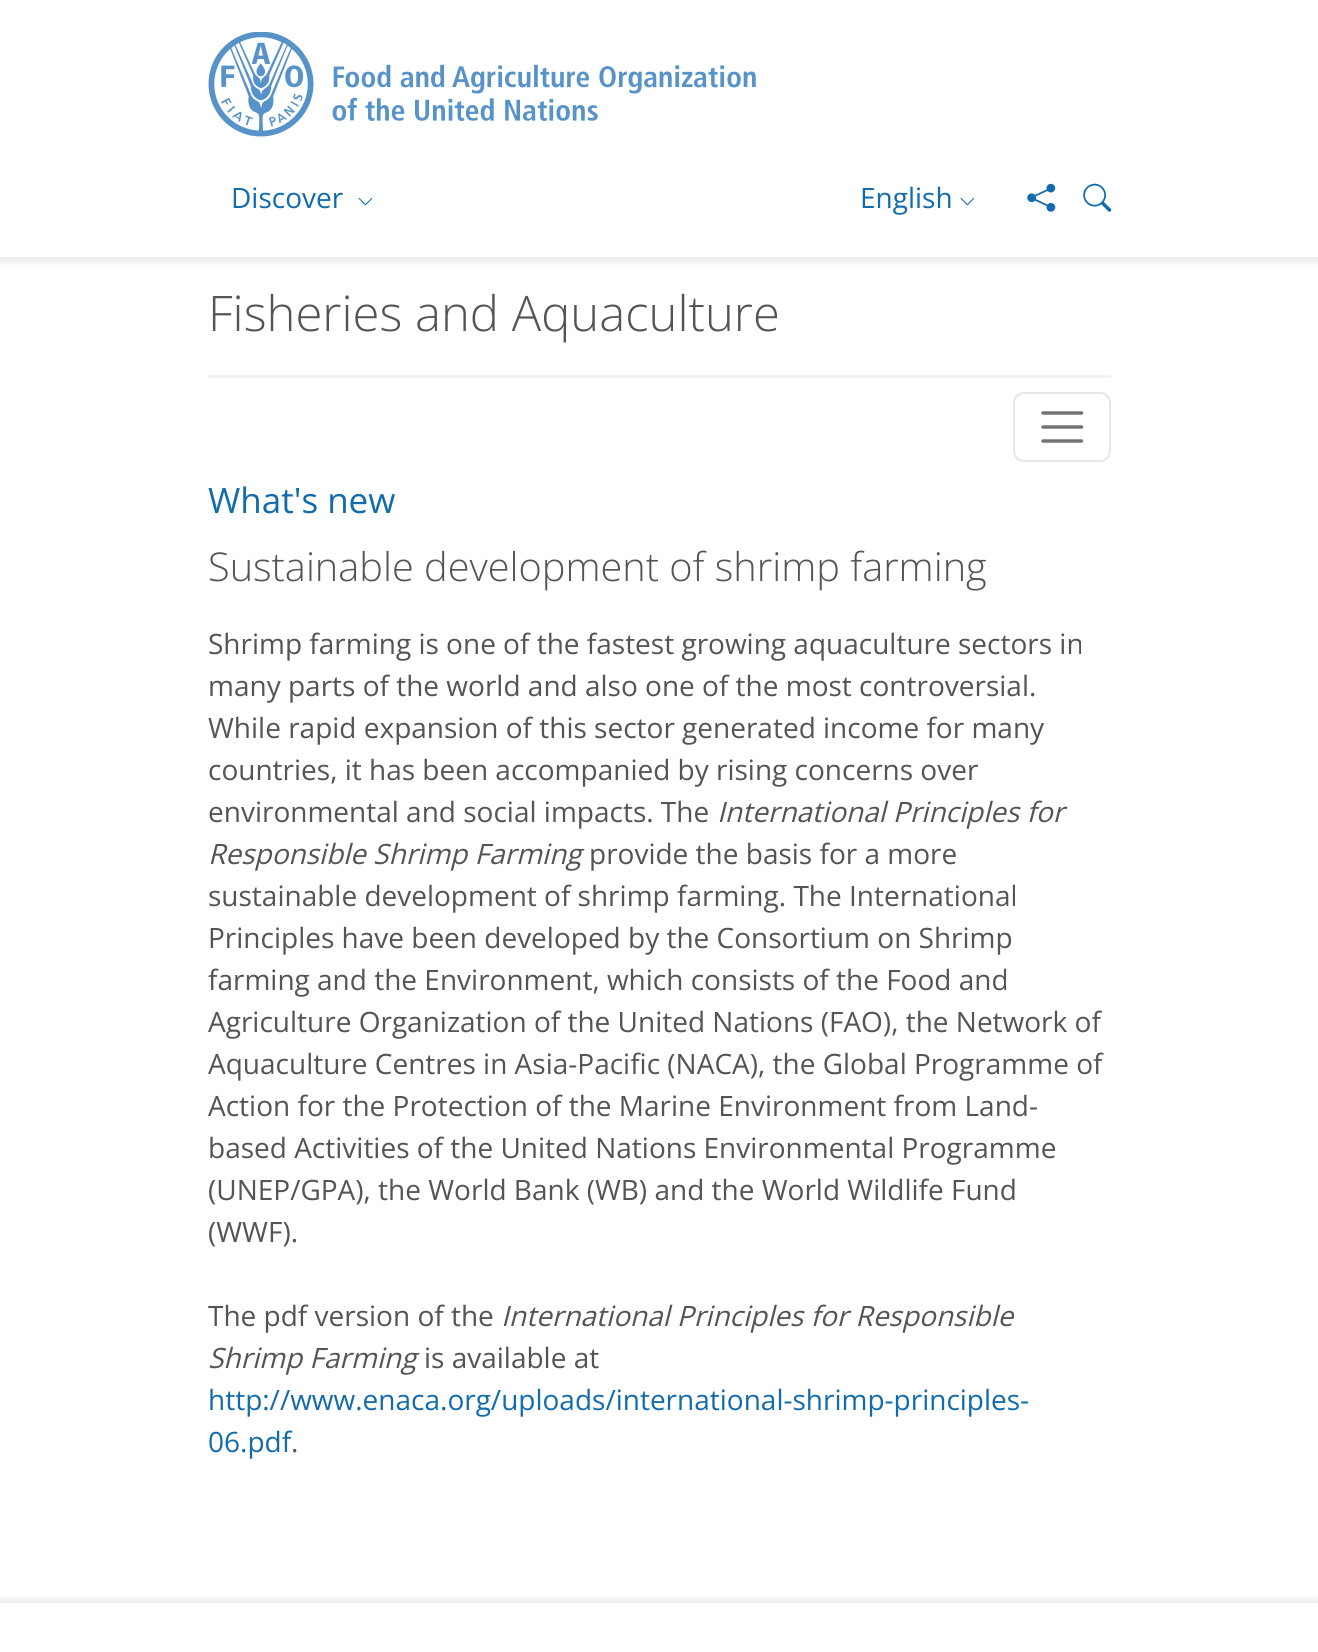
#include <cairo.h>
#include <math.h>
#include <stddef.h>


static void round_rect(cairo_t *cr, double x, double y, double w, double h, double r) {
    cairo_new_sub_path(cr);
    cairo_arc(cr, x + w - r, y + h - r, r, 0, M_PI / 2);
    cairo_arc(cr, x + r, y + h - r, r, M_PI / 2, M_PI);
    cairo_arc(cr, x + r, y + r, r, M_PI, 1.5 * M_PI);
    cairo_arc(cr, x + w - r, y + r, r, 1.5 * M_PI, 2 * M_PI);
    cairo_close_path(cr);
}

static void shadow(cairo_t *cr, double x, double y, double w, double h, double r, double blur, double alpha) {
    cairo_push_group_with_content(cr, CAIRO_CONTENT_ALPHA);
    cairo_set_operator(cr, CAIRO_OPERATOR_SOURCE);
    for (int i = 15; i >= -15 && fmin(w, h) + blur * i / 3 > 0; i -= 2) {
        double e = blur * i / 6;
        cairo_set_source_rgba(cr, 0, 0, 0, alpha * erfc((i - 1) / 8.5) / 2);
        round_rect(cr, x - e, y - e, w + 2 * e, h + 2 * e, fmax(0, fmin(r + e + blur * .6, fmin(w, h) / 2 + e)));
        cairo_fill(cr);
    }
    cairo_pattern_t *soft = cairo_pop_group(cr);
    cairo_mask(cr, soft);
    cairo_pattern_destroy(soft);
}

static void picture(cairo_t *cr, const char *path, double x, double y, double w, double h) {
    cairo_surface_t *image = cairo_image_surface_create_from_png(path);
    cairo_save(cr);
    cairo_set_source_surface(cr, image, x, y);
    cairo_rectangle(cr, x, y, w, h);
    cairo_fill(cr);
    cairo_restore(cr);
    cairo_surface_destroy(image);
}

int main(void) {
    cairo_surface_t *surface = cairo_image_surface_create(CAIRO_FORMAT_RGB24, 1318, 1652);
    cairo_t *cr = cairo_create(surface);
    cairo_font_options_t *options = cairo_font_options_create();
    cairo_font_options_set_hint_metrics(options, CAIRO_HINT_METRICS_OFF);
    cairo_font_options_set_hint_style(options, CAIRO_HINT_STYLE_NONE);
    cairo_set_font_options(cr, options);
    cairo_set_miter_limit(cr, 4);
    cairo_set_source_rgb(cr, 1, 1, 1);
    cairo_paint(cr);
    cairo_save(cr);
    cairo_rectangle(cr, 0, 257, 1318, 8);
    cairo_clip(cr);
    cairo_set_source_rgb(cr, 0, 0, 0);
    shadow(cr, 0, 9, 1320, 252, 0, 5, 0.1);
    cairo_restore(cr);
    picture(cr, "img1.png", 208, 32, 548, 105);
    cairo_select_font_face(cr, "Open Sans", CAIRO_FONT_SLANT_NORMAL, CAIRO_FONT_WEIGHT_NORMAL);
    cairo_set_font_size(cr, 28);
    cairo_set_source_rgb(cr, 0.067, 0.42, 0.675);
    cairo_move_to(cr, 231, 208);
    cairo_show_text(cr, "Discover");
    picture(cr, "img2.png", 358, 198, 15, 8);
    cairo_move_to(cr, 860, 208);
    cairo_show_text(cr, "English");
    picture(cr, "img2.png", 960, 198, 15, 8);
    picture(cr, "img3.png", 1027, 183, 29, 29);
    picture(cr, "img4.png", 1083, 183, 29, 29);
    cairo_set_source_rgb(cr, 0.949, 0.949, 0.949);
    cairo_rectangle(cr, 208, 375, 903, 3);
    cairo_fill(cr);
    cairo_select_font_face(cr, "Open Sans Light", CAIRO_FONT_SLANT_NORMAL, CAIRO_FONT_WEIGHT_NORMAL);
    cairo_set_font_size(cr, 49);
    cairo_set_source_rgb(cr, 0.329, 0.329, 0.329);
    cairo_move_to(cr, 208, 331);
    cairo_show_text(cr, "Fisheries and Aquaculture");
    round_rect(cr, 1014, 393, 96, 68, 10);
    cairo_set_source_rgb(cr, 0.902, 0.902, 0.902);
    cairo_stroke(cr);
    cairo_new_path(cr);
    cairo_move_to(cr, 1043, 413);
    cairo_line_to(cr, 1081.5, 413);
    cairo_move_to(cr, 1043, 427);
    cairo_line_to(cr, 1081.5, 427);
    cairo_move_to(cr, 1043, 441);
    cairo_line_to(cr, 1081.5, 441);
    cairo_set_source_rgb(cr, 0.451, 0.451, 0.451);
    cairo_set_line_width(cr, 3.5);
    cairo_set_line_cap(cr, CAIRO_LINE_CAP_ROUND);
    cairo_stroke(cr);
    cairo_select_font_face(cr, "Open Sans", CAIRO_FONT_SLANT_NORMAL, CAIRO_FONT_WEIGHT_NORMAL);
    cairo_set_font_size(cr, 35);
    cairo_set_source_rgb(cr, 0.067, 0.42, 0.675);
    cairo_move_to(cr, 208, 513);
    cairo_show_text(cr, "What's new");
    cairo_select_font_face(cr, "Open Sans Light", CAIRO_FONT_SLANT_NORMAL, CAIRO_FONT_WEIGHT_NORMAL);
    cairo_set_font_size(cr, 39.7);
    cairo_set_source_rgb(cr, 0.329, 0.329, 0.329);
    cairo_move_to(cr, 208, 581);
    cairo_show_text(cr, "Sustainable development of shrimp farming");
    cairo_select_font_face(cr, "Open Sans", CAIRO_FONT_SLANT_NORMAL, CAIRO_FONT_WEIGHT_NORMAL);
    cairo_set_font_size(cr, 28);
    cairo_move_to(cr, 208, 654);
    cairo_show_text(cr, "Shrimp farming is one of the fastest growing aquaculture sectors in");
    cairo_move_to(cr, 208, 696);
    cairo_show_text(cr, "many parts of the world and also one of the most controversial.");
    cairo_move_to(cr, 208, 738);
    cairo_show_text(cr, "While rapid expansion of this sector generated income for many");
    cairo_move_to(cr, 208, 780);
    cairo_show_text(cr, "countries, it has been accompanied by rising concerns over");
    cairo_move_to(cr, 208, 822);
    cairo_show_text(cr, "environmental and social impacts. The");
    cairo_select_font_face(cr, "Open Sans", CAIRO_FONT_SLANT_ITALIC, CAIRO_FONT_WEIGHT_NORMAL);
    cairo_move_to(cr, 717, 822);
    cairo_show_text(cr, "International Principles for");
    cairo_move_to(cr, 208, 864);
    cairo_show_text(cr, "Responsible Shrimp Farming");
    cairo_select_font_face(cr, "Open Sans", CAIRO_FONT_SLANT_NORMAL, CAIRO_FONT_WEIGHT_NORMAL);
    cairo_move_to(cr, 589, 864);
    cairo_show_text(cr, "provide the basis for a more");
    cairo_move_to(cr, 208, 906);
    cairo_show_text(cr, "sustainable development of shrimp farming. The International");
    cairo_move_to(cr, 208, 948);
    cairo_show_text(cr, "Principles have been developed by the Consortium on Shrimp");
    cairo_move_to(cr, 208, 990);
    cairo_show_text(cr, "farming and the Environment, which consists of the Food and");
    cairo_move_to(cr, 208, 1032);
    cairo_show_text(cr, "Agriculture Organization of the United Nations (FAO), the Network of");
    cairo_move_to(cr, 208, 1074);
    cairo_show_text(cr, "Aquaculture Centres in Asia-Pacific (NACA), the Global Programme of");
    cairo_move_to(cr, 208, 1116);
    cairo_show_text(cr, "Action for the Protection of the Marine Environment from Land-");
    cairo_move_to(cr, 208, 1158);
    cairo_show_text(cr, "based Activities of the United Nations Environmental Programme");
    cairo_move_to(cr, 208, 1200);
    cairo_show_text(cr, "(UNEP/GPA), the World Bank (WB) and the World Wildlife Fund");
    cairo_move_to(cr, 208, 1242);
    cairo_show_text(cr, "(WWF).");
    cairo_move_to(cr, 208, 1326);
    cairo_show_text(cr, "The pdf version of the");
    cairo_select_font_face(cr, "Open Sans", CAIRO_FONT_SLANT_ITALIC, CAIRO_FONT_WEIGHT_NORMAL);
    cairo_move_to(cr, 501, 1326);
    cairo_show_text(cr, "International Principles for Responsible");
    cairo_move_to(cr, 208, 1368);
    cairo_show_text(cr, "Shrimp Farming");
    cairo_select_font_face(cr, "Open Sans", CAIRO_FONT_SLANT_NORMAL, CAIRO_FONT_WEIGHT_NORMAL);
    cairo_move_to(cr, 424, 1368);
    cairo_show_text(cr, "is available at");
    cairo_set_source_rgb(cr, 0.067, 0.42, 0.675);
    cairo_move_to(cr, 208, 1410);
    cairo_show_text(cr, "http://www.enaca.org/uploads/international-shrimp-principles-");
    cairo_move_to(cr, 208, 1452);
    cairo_show_text(cr, "06.pdf");
    cairo_set_source_rgb(cr, 0.329, 0.329, 0.329);
    cairo_move_to(cr, 291, 1452);
    cairo_show_text(cr, ".");
    cairo_save(cr);
    cairo_rectangle(cr, 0, 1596, 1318, 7);
    cairo_clip(cr);
    cairo_set_source_rgb(cr, 0, 0, 0);
    shadow(cr, 0, 1600, 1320, 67, 0, 5, 0.1);
    cairo_restore(cr);
    cairo_surface_write_to_png(surface, "page.png");
    cairo_font_options_destroy(options);
    cairo_destroy(cr);
    cairo_surface_destroy(surface);
    return 0;
}
